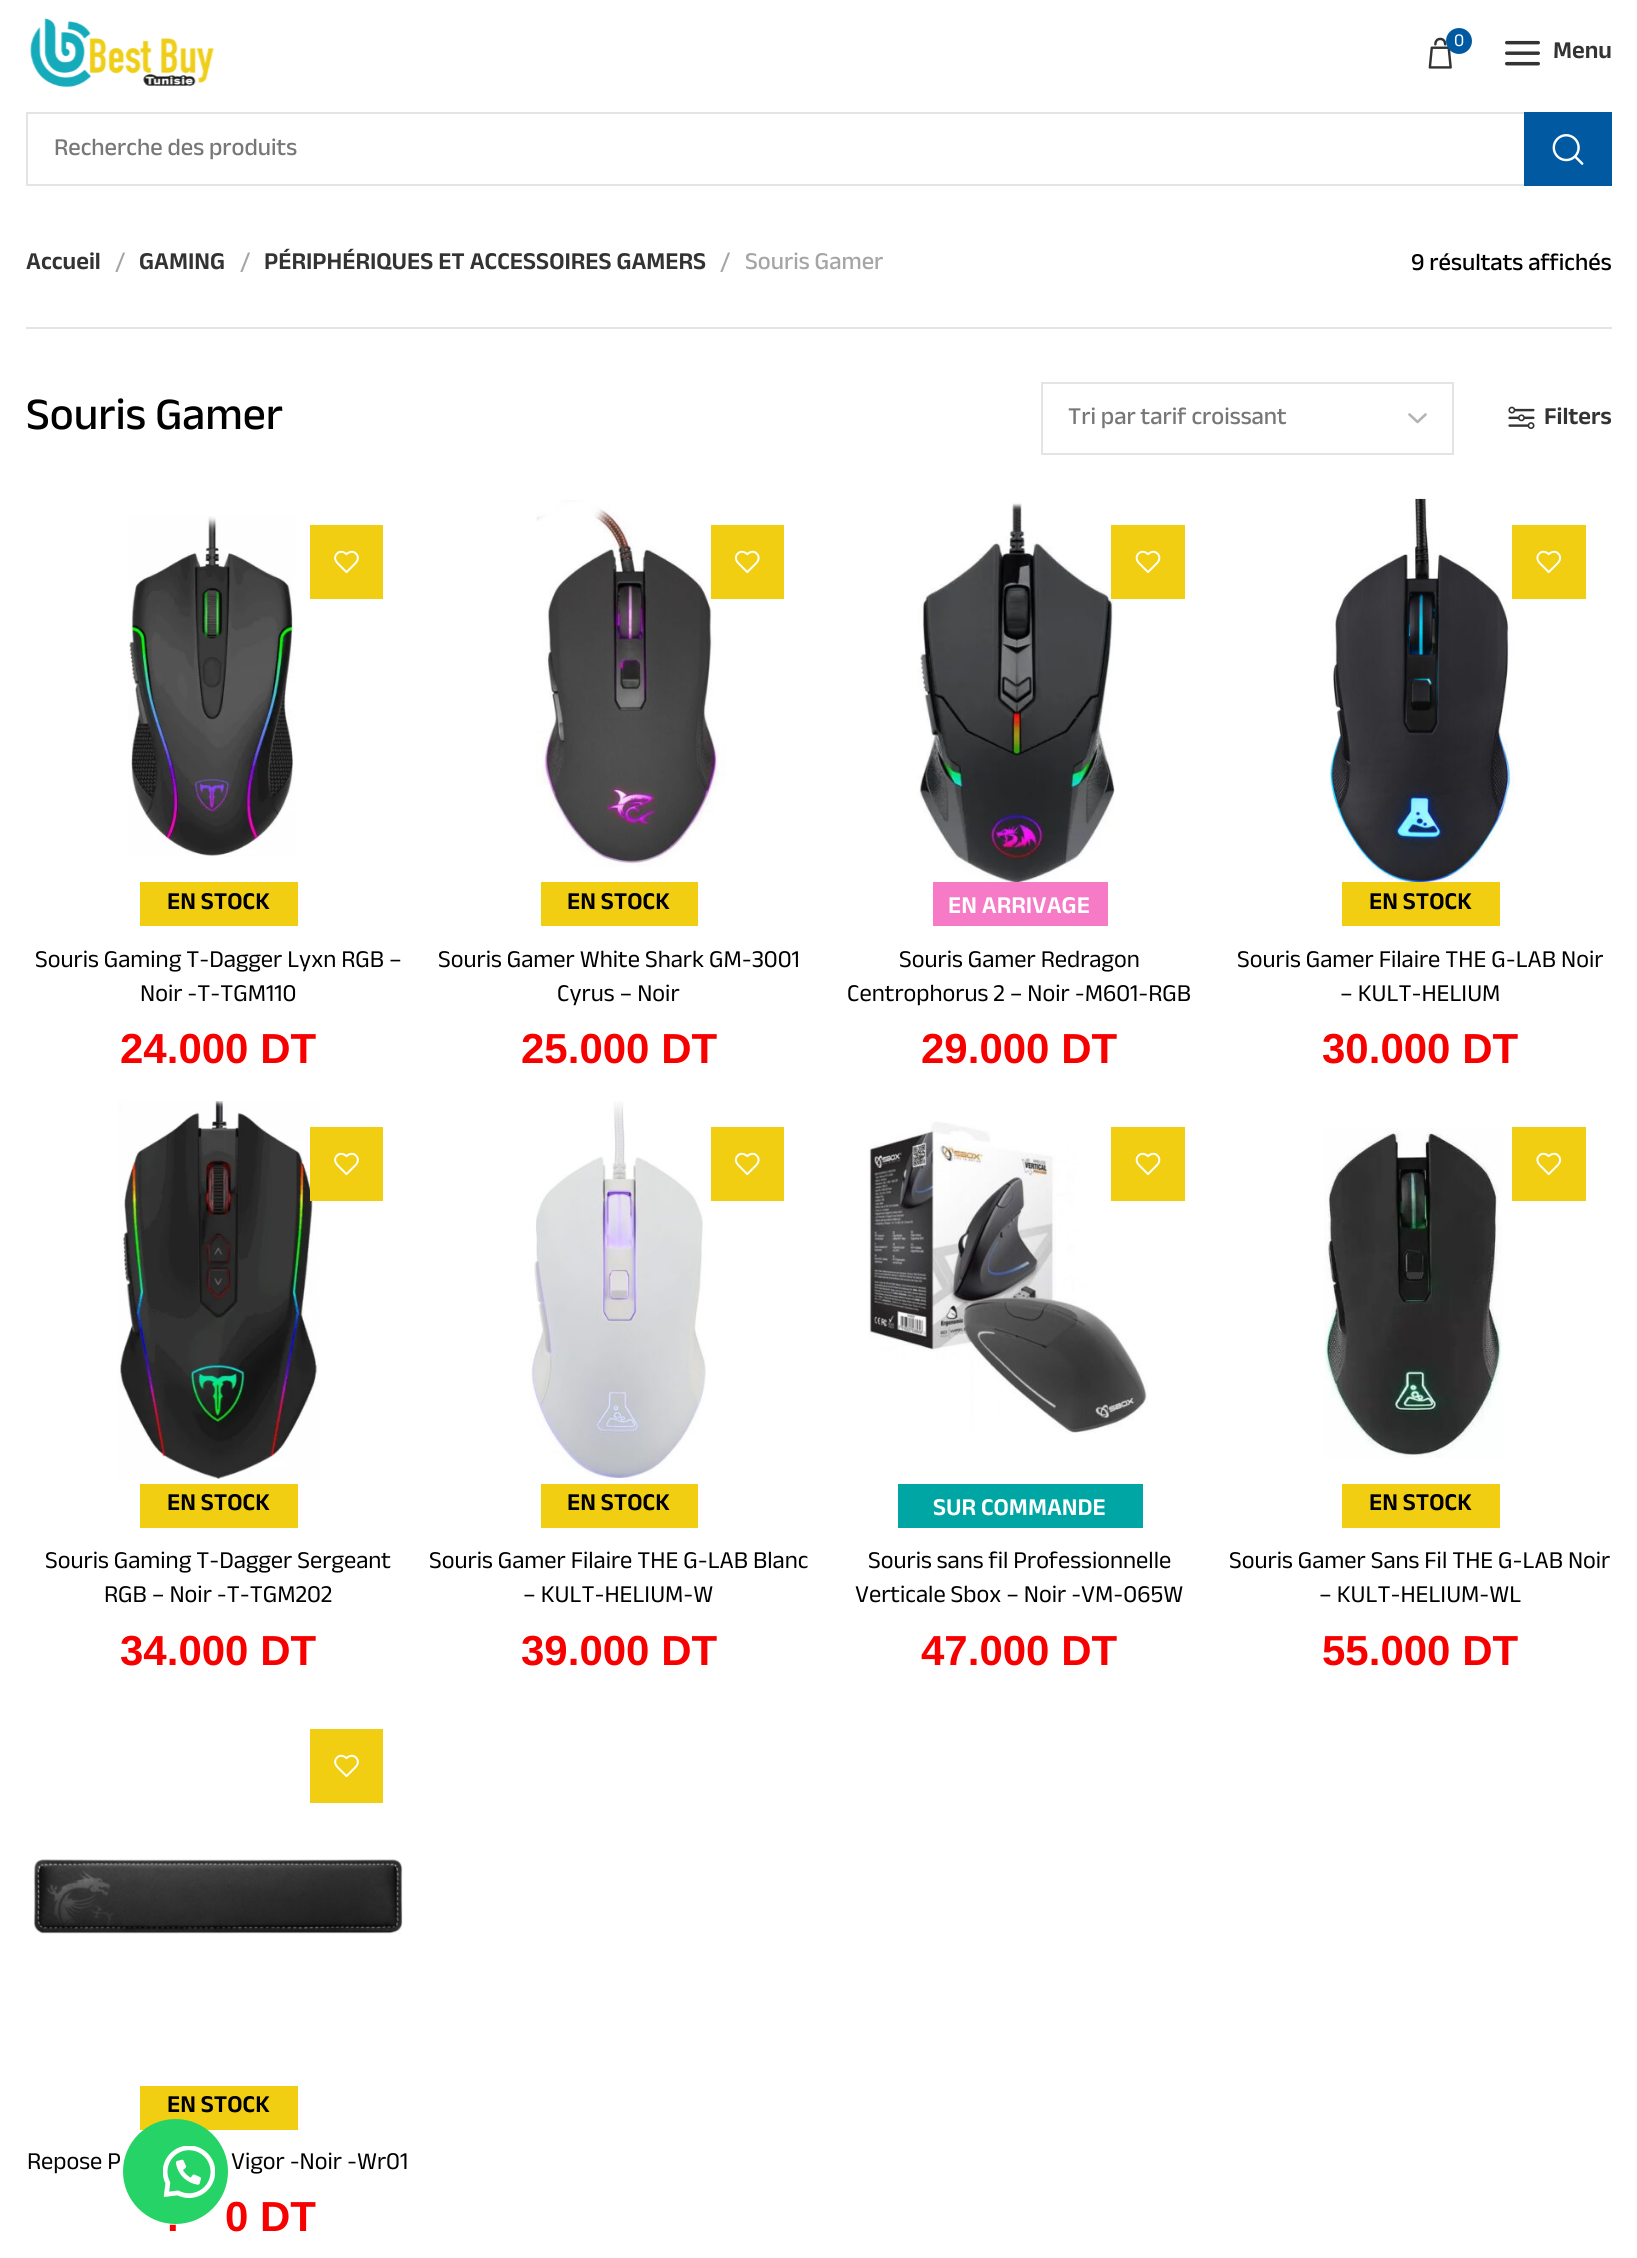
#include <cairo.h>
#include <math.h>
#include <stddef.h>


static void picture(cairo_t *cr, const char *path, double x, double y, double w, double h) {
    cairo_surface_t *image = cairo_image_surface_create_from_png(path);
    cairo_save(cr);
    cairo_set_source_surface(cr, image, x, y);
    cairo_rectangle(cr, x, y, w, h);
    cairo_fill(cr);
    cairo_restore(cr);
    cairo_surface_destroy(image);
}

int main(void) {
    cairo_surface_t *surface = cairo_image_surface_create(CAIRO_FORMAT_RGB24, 1637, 2258);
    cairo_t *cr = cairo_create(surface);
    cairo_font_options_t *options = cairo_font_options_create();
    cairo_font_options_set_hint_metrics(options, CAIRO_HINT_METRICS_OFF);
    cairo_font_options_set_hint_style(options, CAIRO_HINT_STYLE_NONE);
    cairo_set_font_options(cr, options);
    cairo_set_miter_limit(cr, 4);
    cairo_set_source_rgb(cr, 1, 1, 1);
    cairo_paint(cr);
    picture(cr, "img1.png", 30, 18, 185, 69);
    picture(cr, "img2.png", 1428, 37, 24, 32);
    cairo_set_source_rgb(cr, 0.004, 0.349, 0.631);
    cairo_arc(cr, 1459, 41, 13, 0, 2 * M_PI);
    cairo_fill(cr);
    cairo_select_font_face(cr, "Anek Gujarati", CAIRO_FONT_SLANT_NORMAL, CAIRO_FONT_WEIGHT_NORMAL);
    cairo_set_font_size(cr, 18);
    cairo_set_source_rgb(cr, 1, 1, 1);
    cairo_move_to(cr, 1454, 46);
    cairo_show_text(cr, "0");
    picture(cr, "img3.png", 1505, 40, 35, 26);
    cairo_select_font_face(cr, "Anek Gujarati SemiBold", CAIRO_FONT_SLANT_NORMAL, CAIRO_FONT_WEIGHT_NORMAL);
    cairo_set_font_size(cr, 24.5);
    cairo_set_source_rgb(cr, 0.2, 0.2, 0.2);
    cairo_move_to(cr, 1553, 58);
    cairo_show_text(cr, "Menu");
    cairo_rectangle(cr, 27, 113, 1584, 72);
    cairo_set_source_rgb(cr, 0.894, 0.894, 0.894);
    cairo_stroke(cr);
    cairo_select_font_face(cr, "Anek Gujarati Medium", CAIRO_FONT_SLANT_NORMAL, CAIRO_FONT_WEIGHT_NORMAL);
    cairo_set_source_rgb(cr, 0.467, 0.467, 0.467);
    cairo_move_to(cr, 54, 155);
    cairo_show_text(cr, "Recherche des produits");
    cairo_set_source_rgb(cr, 0.004, 0.349, 0.631);
    cairo_rectangle(cr, 1524, 112, 88, 74);
    cairo_fill(cr);
    picture(cr, "img4.png", 1552, 134, 32, 31);
    cairo_set_source_rgb(cr, 0.894, 0.894, 0.894);
    cairo_rectangle(cr, 26, 327, 1586, 2);
    cairo_fill(cr);
    cairo_select_font_face(cr, "Anek Gujarati SemiBold", CAIRO_FONT_SLANT_NORMAL, CAIRO_FONT_WEIGHT_NORMAL);
    cairo_set_source_rgb(cr, 0.2, 0.2, 0.2);
    cairo_move_to(cr, 26, 269);
    cairo_show_text(cr, "Accueil");
    cairo_select_font_face(cr, "Anek Gujarati Medium", CAIRO_FONT_SLANT_NORMAL, CAIRO_FONT_WEIGHT_NORMAL);
    cairo_set_source_rgb(cr, 0.647, 0.647, 0.647);
    cairo_move_to(cr, 115, 269);
    cairo_show_text(cr, "/");
    cairo_select_font_face(cr, "Anek Gujarati SemiBold", CAIRO_FONT_SLANT_NORMAL, CAIRO_FONT_WEIGHT_NORMAL);
    cairo_set_source_rgb(cr, 0.2, 0.2, 0.2);
    cairo_move_to(cr, 139, 269);
    cairo_show_text(cr, "GAMING");
    cairo_select_font_face(cr, "Anek Gujarati Medium", CAIRO_FONT_SLANT_NORMAL, CAIRO_FONT_WEIGHT_NORMAL);
    cairo_set_source_rgb(cr, 0.647, 0.647, 0.647);
    cairo_move_to(cr, 240, 269);
    cairo_show_text(cr, "/");
    cairo_select_font_face(cr, "Anek Gujarati SemiBold", CAIRO_FONT_SLANT_NORMAL, CAIRO_FONT_WEIGHT_NORMAL);
    cairo_set_source_rgb(cr, 0.2, 0.2, 0.2);
    cairo_move_to(cr, 264, 269);
    cairo_show_text(cr, "PÉRIPHÉRIQUES ET ACCESSOIRES GAMERS");
    cairo_select_font_face(cr, "Anek Gujarati Medium", CAIRO_FONT_SLANT_NORMAL, CAIRO_FONT_WEIGHT_NORMAL);
    cairo_set_source_rgb(cr, 0.647, 0.647, 0.647);
    cairo_move_to(cr, 720, 269);
    cairo_show_text(cr, "/");
    cairo_move_to(cr, 745, 269);
    cairo_show_text(cr, "Souris Gamer");
    cairo_set_source_rgb(cr, 0, 0, 0);
    cairo_move_to(cr, 1411, 270);
    cairo_show_text(cr, "9 résultats affichés");
    cairo_set_font_size(cr, 45.5);
    cairo_move_to(cr, 26, 429);
    cairo_show_text(cr, "Souris Gamer");
    cairo_new_path(cr);
    cairo_move_to(cr, 1409.5, 414.5);
    cairo_line_to(cr, 1417.5, 422);
    cairo_line_to(cr, 1425.5, 414.5);
    cairo_set_source_rgb(cr, 0.702, 0.702, 0.702);
    cairo_set_line_width(cr, 2.6);
    cairo_set_line_cap(cr, CAIRO_LINE_CAP_ROUND);
    cairo_set_line_join(cr, CAIRO_LINE_JOIN_ROUND);
    cairo_stroke(cr);
    cairo_rectangle(cr, 1042, 383, 411, 71);
    cairo_set_source_rgb(cr, 0.894, 0.894, 0.894);
    cairo_set_line_width(cr, 2);
    cairo_set_line_cap(cr, CAIRO_LINE_CAP_BUTT);
    cairo_set_line_join(cr, CAIRO_LINE_JOIN_MITER);
    cairo_stroke(cr);
    cairo_set_font_size(cr, 24.5);
    cairo_set_source_rgb(cr, 0.467, 0.467, 0.467);
    cairo_move_to(cr, 1068, 424);
    cairo_show_text(cr, "Tri par tarif croissant");
    picture(cr, "img5.png", 1508, 406, 27, 23);
    cairo_select_font_face(cr, "Anek Gujarati SemiBold", CAIRO_FONT_SLANT_NORMAL, CAIRO_FONT_WEIGHT_NORMAL);
    cairo_set_source_rgb(cr, 0.2, 0.2, 0.2);
    cairo_move_to(cr, 1544, 424);
    cairo_show_text(cr, "Filters");
    picture(cr, "img6.png", 128, 516, 167, 341);
    cairo_set_source_rgb(cr, 0.945, 0.808, 0.071);
    cairo_rectangle(cr, 310, 525, 73, 74);
    cairo_fill(cr);
    picture(cr, "img7.png", 334, 550, 25, 24);
    cairo_rectangle(cr, 140, 882, 158, 44);
    cairo_fill(cr);
    cairo_set_source_rgb(cr, 0, 0, 0);
    cairo_move_to(cr, 167, 909);
    cairo_show_text(cr, "EN STOCK");
    cairo_select_font_face(cr, "Anek Gujarati", CAIRO_FONT_SLANT_NORMAL, CAIRO_FONT_WEIGHT_NORMAL);
    cairo_move_to(cr, 35, 967);
    cairo_show_text(cr, "Souris Gaming T-Dagger Lyxn RGB –");
    cairo_move_to(cr, 140, 1001);
    cairo_show_text(cr, "Noir -T-TGM110");
    cairo_select_font_face(cr, "Liberation Sans", CAIRO_FONT_SLANT_NORMAL, CAIRO_FONT_WEIGHT_BOLD);
    cairo_set_font_size(cr, 42);
    cairo_set_source_rgb(cr, 0.965, 0, 0);
    cairo_move_to(cr, 120, 1063);
    cairo_show_text(cr, "24.000 DT");
    picture(cr, "img8.png", 536, 500, 191, 367);
    cairo_set_source_rgb(cr, 0.945, 0.808, 0.071);
    cairo_rectangle(cr, 711, 525, 73, 74);
    cairo_fill(cr);
    picture(cr, "img9.png", 734, 550, 26, 24);
    cairo_rectangle(cr, 541, 882, 157, 44);
    cairo_fill(cr);
    cairo_select_font_face(cr, "Anek Gujarati SemiBold", CAIRO_FONT_SLANT_NORMAL, CAIRO_FONT_WEIGHT_NORMAL);
    cairo_set_font_size(cr, 24.5);
    cairo_set_source_rgb(cr, 0, 0, 0);
    cairo_move_to(cr, 567, 909);
    cairo_show_text(cr, "EN STOCK");
    cairo_select_font_face(cr, "Anek Gujarati", CAIRO_FONT_SLANT_NORMAL, CAIRO_FONT_WEIGHT_NORMAL);
    cairo_move_to(cr, 438, 967);
    cairo_show_text(cr, "Souris Gamer White Shark GM-3001");
    cairo_move_to(cr, 557, 1001);
    cairo_show_text(cr, "Cyrus – Noir");
    cairo_select_font_face(cr, "Liberation Sans", CAIRO_FONT_SLANT_NORMAL, CAIRO_FONT_WEIGHT_BOLD);
    cairo_set_font_size(cr, 42);
    cairo_set_source_rgb(cr, 0.965, 0, 0);
    cairo_move_to(cr, 521, 1063);
    cairo_show_text(cr, "25.000 DT");
    picture(cr, "img10.png", 917, 502, 198, 380);
    cairo_set_source_rgb(cr, 0.945, 0.808, 0.071);
    cairo_rectangle(cr, 1111, 525, 74, 74);
    cairo_fill(cr);
    picture(cr, "img11.png", 1135, 550, 26, 23);
    cairo_set_source_rgb(cr, 0.961, 0.478, 0.776);
    cairo_rectangle(cr, 933, 882, 175, 44);
    cairo_fill(cr);
    cairo_select_font_face(cr, "Anek Gujarati SemiBold", CAIRO_FONT_SLANT_NORMAL, CAIRO_FONT_WEIGHT_NORMAL);
    cairo_set_font_size(cr, 24.5);
    cairo_set_source_rgb(cr, 1, 1, 1);
    cairo_move_to(cr, 948, 913);
    cairo_show_text(cr, "EN ARRIVAGE");
    cairo_select_font_face(cr, "Anek Gujarati", CAIRO_FONT_SLANT_NORMAL, CAIRO_FONT_WEIGHT_NORMAL);
    cairo_set_source_rgb(cr, 0, 0, 0);
    cairo_move_to(cr, 899, 967);
    cairo_show_text(cr, "Souris Gamer Redragon");
    cairo_move_to(cr, 847, 1001);
    cairo_show_text(cr, "Centrophorus 2 – Noir -M601-RGB");
    cairo_select_font_face(cr, "Liberation Sans", CAIRO_FONT_SLANT_NORMAL, CAIRO_FONT_WEIGHT_BOLD);
    cairo_set_font_size(cr, 42);
    cairo_set_source_rgb(cr, 0.965, 0, 0);
    cairo_move_to(cr, 921, 1063);
    cairo_show_text(cr, "29.000 DT");
    picture(cr, "img12.png", 1329, 498, 186, 384);
    cairo_set_source_rgb(cr, 0.945, 0.808, 0.071);
    cairo_rectangle(cr, 1512, 525, 74, 74);
    cairo_fill(cr);
    picture(cr, "img13.png", 1536, 550, 26, 24);
    cairo_rectangle(cr, 1342, 882, 158, 44);
    cairo_fill(cr);
    cairo_select_font_face(cr, "Anek Gujarati SemiBold", CAIRO_FONT_SLANT_NORMAL, CAIRO_FONT_WEIGHT_NORMAL);
    cairo_set_font_size(cr, 24.5);
    cairo_set_source_rgb(cr, 0, 0, 0);
    cairo_move_to(cr, 1369, 909);
    cairo_show_text(cr, "EN STOCK");
    cairo_select_font_face(cr, "Anek Gujarati", CAIRO_FONT_SLANT_NORMAL, CAIRO_FONT_WEIGHT_NORMAL);
    cairo_move_to(cr, 1237, 967);
    cairo_show_text(cr, "Souris Gamer Filaire THE G-LAB Noir");
    cairo_move_to(cr, 1340, 1001);
    cairo_show_text(cr, "– KULT-HELIUM");
    cairo_select_font_face(cr, "Liberation Sans", CAIRO_FONT_SLANT_NORMAL, CAIRO_FONT_WEIGHT_BOLD);
    cairo_set_font_size(cr, 42);
    cairo_set_source_rgb(cr, 0.965, 0, 0);
    cairo_move_to(cr, 1322, 1063);
    cairo_show_text(cr, "30.000 DT");
    picture(cr, "img14.png", 118, 1101, 201, 378);
    cairo_set_source_rgb(cr, 0.945, 0.808, 0.071);
    cairo_rectangle(cr, 310, 1127, 73, 74);
    cairo_fill(cr);
    picture(cr, "img7.png", 334, 1152, 25, 24);
    cairo_rectangle(cr, 140, 1484, 158, 44);
    cairo_fill(cr);
    cairo_select_font_face(cr, "Anek Gujarati SemiBold", CAIRO_FONT_SLANT_NORMAL, CAIRO_FONT_WEIGHT_NORMAL);
    cairo_set_font_size(cr, 24.5);
    cairo_set_source_rgb(cr, 0, 0, 0);
    cairo_move_to(cr, 167, 1510);
    cairo_show_text(cr, "EN STOCK");
    cairo_select_font_face(cr, "Anek Gujarati", CAIRO_FONT_SLANT_NORMAL, CAIRO_FONT_WEIGHT_NORMAL);
    cairo_move_to(cr, 45, 1568);
    cairo_show_text(cr, "Souris Gaming T-Dagger Sergeant");
    cairo_move_to(cr, 104, 1602);
    cairo_show_text(cr, "RGB – Noir -T-TGM202");
    cairo_select_font_face(cr, "Liberation Sans", CAIRO_FONT_SLANT_NORMAL, CAIRO_FONT_WEIGHT_BOLD);
    cairo_set_font_size(cr, 42);
    cairo_set_source_rgb(cr, 0.965, 0, 0);
    cairo_move_to(cr, 120, 1665);
    cairo_show_text(cr, "34.000 DT");
    picture(cr, "img15.png", 527, 1101, 179, 381);
    cairo_set_source_rgb(cr, 0.945, 0.808, 0.071);
    cairo_rectangle(cr, 711, 1127, 73, 74);
    cairo_fill(cr);
    picture(cr, "img9.png", 734, 1152, 26, 24);
    cairo_rectangle(cr, 541, 1484, 157, 44);
    cairo_fill(cr);
    cairo_select_font_face(cr, "Anek Gujarati SemiBold", CAIRO_FONT_SLANT_NORMAL, CAIRO_FONT_WEIGHT_NORMAL);
    cairo_set_font_size(cr, 24.5);
    cairo_set_source_rgb(cr, 0, 0, 0);
    cairo_move_to(cr, 567, 1510);
    cairo_show_text(cr, "EN STOCK");
    cairo_select_font_face(cr, "Anek Gujarati", CAIRO_FONT_SLANT_NORMAL, CAIRO_FONT_WEIGHT_NORMAL);
    cairo_move_to(cr, 429, 1568);
    cairo_show_text(cr, "Souris Gamer Filaire THE G-LAB Blanc");
    cairo_move_to(cr, 523, 1602);
    cairo_show_text(cr, "– KULT-HELIUM-W");
    cairo_select_font_face(cr, "Liberation Sans", CAIRO_FONT_SLANT_NORMAL, CAIRO_FONT_WEIGHT_BOLD);
    cairo_set_font_size(cr, 42);
    cairo_set_source_rgb(cr, 0.965, 0, 0);
    cairo_move_to(cr, 521, 1665);
    cairo_show_text(cr, "39.000 DT");
    picture(cr, "img16.png", 868, 1121, 280, 313);
    cairo_set_source_rgb(cr, 0.945, 0.808, 0.071);
    cairo_rectangle(cr, 1111, 1127, 74, 74);
    cairo_fill(cr);
    picture(cr, "img11.png", 1135, 1152, 26, 23);
    cairo_set_source_rgb(cr, 0, 0.651, 0.643);
    cairo_rectangle(cr, 898, 1484, 245, 44);
    cairo_fill(cr);
    cairo_select_font_face(cr, "Anek Gujarati SemiBold", CAIRO_FONT_SLANT_NORMAL, CAIRO_FONT_WEIGHT_NORMAL);
    cairo_set_font_size(cr, 24.5);
    cairo_set_source_rgb(cr, 1, 1, 1);
    cairo_move_to(cr, 933, 1515);
    cairo_show_text(cr, "SUR COMMANDE");
    cairo_select_font_face(cr, "Anek Gujarati", CAIRO_FONT_SLANT_NORMAL, CAIRO_FONT_WEIGHT_NORMAL);
    cairo_set_source_rgb(cr, 0, 0, 0);
    cairo_move_to(cr, 868, 1568);
    cairo_show_text(cr, "Souris sans fil Professionnelle");
    cairo_move_to(cr, 855, 1602);
    cairo_show_text(cr, "Verticale Sbox – Noir -VM-065W");
    cairo_select_font_face(cr, "Liberation Sans", CAIRO_FONT_SLANT_NORMAL, CAIRO_FONT_WEIGHT_BOLD);
    cairo_set_font_size(cr, 42);
    cairo_set_source_rgb(cr, 0.965, 0, 0);
    cairo_move_to(cr, 921, 1665);
    cairo_show_text(cr, "47.000 DT");
    picture(cr, "img17.png", 1324, 1128, 179, 330);
    cairo_set_source_rgb(cr, 0.945, 0.808, 0.071);
    cairo_rectangle(cr, 1512, 1127, 74, 74);
    cairo_fill(cr);
    picture(cr, "img13.png", 1536, 1152, 26, 24);
    cairo_rectangle(cr, 1342, 1484, 158, 44);
    cairo_fill(cr);
    cairo_select_font_face(cr, "Anek Gujarati SemiBold", CAIRO_FONT_SLANT_NORMAL, CAIRO_FONT_WEIGHT_NORMAL);
    cairo_set_font_size(cr, 24.5);
    cairo_set_source_rgb(cr, 0, 0, 0);
    cairo_move_to(cr, 1369, 1510);
    cairo_show_text(cr, "EN STOCK");
    cairo_select_font_face(cr, "Anek Gujarati", CAIRO_FONT_SLANT_NORMAL, CAIRO_FONT_WEIGHT_NORMAL);
    cairo_move_to(cr, 1229, 1568);
    cairo_show_text(cr, "Souris Gamer Sans Fil THE G-LAB Noir");
    cairo_move_to(cr, 1319, 1602);
    cairo_show_text(cr, "– KULT-HELIUM-WL");
    cairo_select_font_face(cr, "Liberation Sans", CAIRO_FONT_SLANT_NORMAL, CAIRO_FONT_WEIGHT_BOLD);
    cairo_set_font_size(cr, 42);
    cairo_set_source_rgb(cr, 0.965, 0, 0);
    cairo_move_to(cr, 1322, 1665);
    cairo_show_text(cr, "55.000 DT");
    cairo_set_source_rgb(cr, 0.945, 0.808, 0.071);
    cairo_rectangle(cr, 310, 1729, 73, 74);
    cairo_fill(cr);
    picture(cr, "img7.png", 334, 1754, 25, 24);
    picture(cr, "img18.png", 33, 1859, 370, 75);
    cairo_rectangle(cr, 140, 2086, 158, 44);
    cairo_fill(cr);
    cairo_select_font_face(cr, "Anek Gujarati SemiBold", CAIRO_FONT_SLANT_NORMAL, CAIRO_FONT_WEIGHT_NORMAL);
    cairo_set_font_size(cr, 24.5);
    cairo_set_source_rgb(cr, 0, 0, 0);
    cairo_move_to(cr, 167, 2112);
    cairo_show_text(cr, "EN STOCK");
    cairo_select_font_face(cr, "Anek Gujarati", CAIRO_FONT_SLANT_NORMAL, CAIRO_FONT_WEIGHT_NORMAL);
    cairo_move_to(cr, 27, 2169);
    cairo_show_text(cr, "Repose P");
    cairo_move_to(cr, 231, 2169);
    cairo_show_text(cr, "Vigor -Noir -Wr01");
    cairo_select_font_face(cr, "Liberation Sans", CAIRO_FONT_SLANT_NORMAL, CAIRO_FONT_WEIGHT_BOLD);
    cairo_set_font_size(cr, 42);
    cairo_set_source_rgb(cr, 0.965, 0, 0);
    cairo_move_to(cr, 167, 2231);
    cairo_show_text(cr, ".");
    cairo_move_to(cr, 225, 2231);
    cairo_show_text(cr, "0 DT");
    cairo_set_source_rgb(cr, 0.145, 0.827, 0.4);
    cairo_new_path(cr);
    cairo_arc(cr, 175.5, 2171.5, 52.5, 0, 2 * M_PI);
    cairo_fill(cr);
    picture(cr, "img19.png", 163, 2146, 52, 52);
    cairo_surface_write_to_png(surface, "page.png");
    cairo_font_options_destroy(options);
    cairo_destroy(cr);
    cairo_surface_destroy(surface);
    return 0;
}
